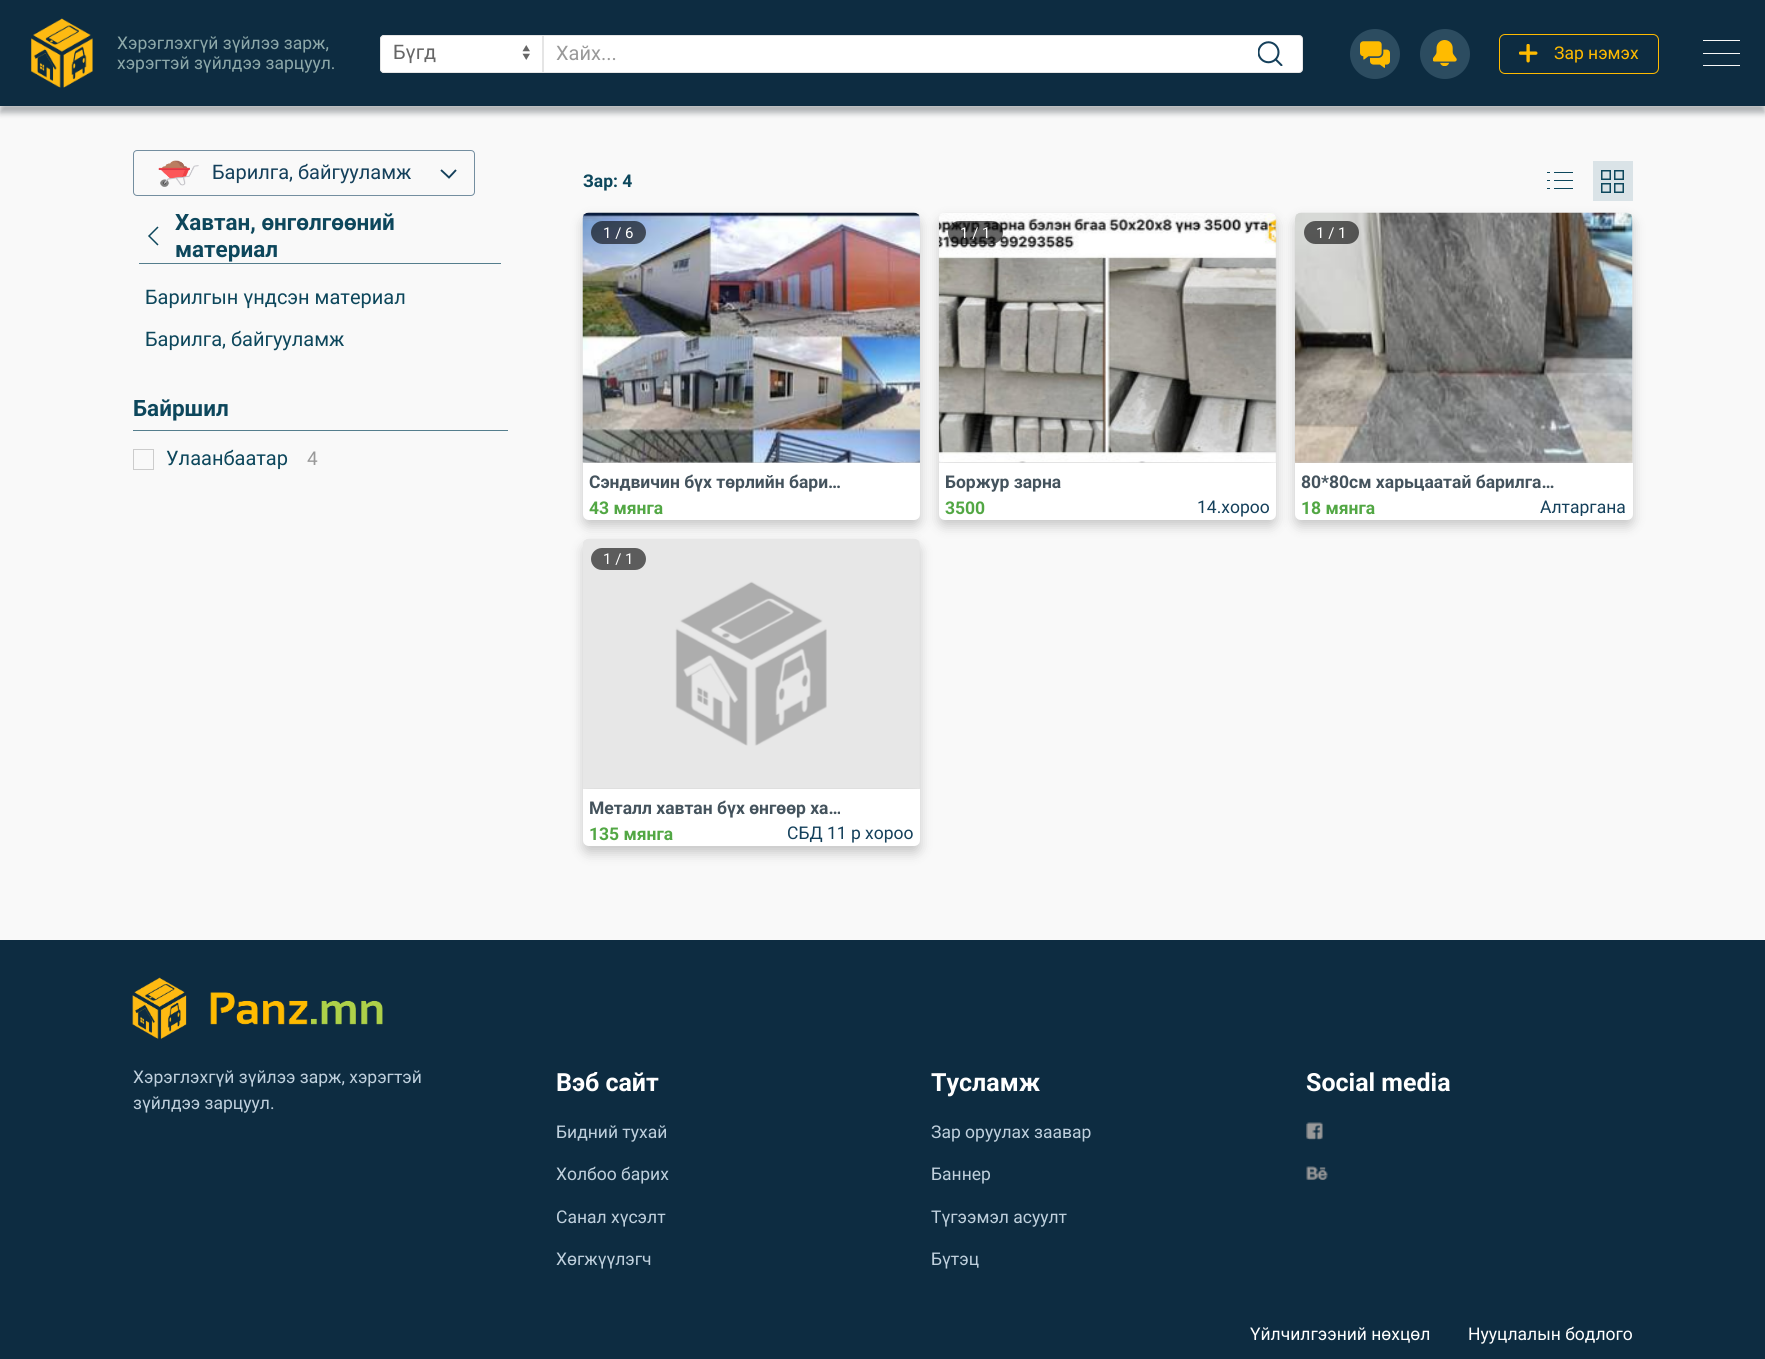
#include <cairo.h>
#include <math.h>
#include <stddef.h>


static void round_rect(cairo_t *cr, double x, double y, double w, double h, double r) {
    cairo_new_sub_path(cr);
    cairo_arc(cr, x + w - r, y + h - r, r, 0, M_PI / 2);
    cairo_arc(cr, x + r, y + h - r, r, M_PI / 2, M_PI);
    cairo_arc(cr, x + r, y + r, r, M_PI, 1.5 * M_PI);
    cairo_arc(cr, x + w - r, y + r, r, 1.5 * M_PI, 2 * M_PI);
    cairo_close_path(cr);
}

static void shadow(cairo_t *cr, double x, double y, double w, double h, double r, double blur, double alpha) {
    cairo_push_group_with_content(cr, CAIRO_CONTENT_ALPHA);
    cairo_set_operator(cr, CAIRO_OPERATOR_SOURCE);
    for (int i = 15; i >= -15 && fmin(w, h) + blur * i / 3 > 0; i -= 2) {
        double e = blur * i / 6;
        cairo_set_source_rgba(cr, 0, 0, 0, alpha * erfc((i - 1) / 8.5) / 2);
        round_rect(cr, x - e, y - e, w + 2 * e, h + 2 * e, fmax(0, fmin(r + e + blur * .6, fmin(w, h) / 2 + e)));
        cairo_fill(cr);
    }
    cairo_pattern_t *soft = cairo_pop_group(cr);
    cairo_mask(cr, soft);
    cairo_pattern_destroy(soft);
}

static void picture(cairo_t *cr, const char *path, double x, double y, double w, double h) {
    cairo_surface_t *image = cairo_image_surface_create_from_png(path);
    cairo_save(cr);
    cairo_set_source_surface(cr, image, x, y);
    cairo_rectangle(cr, x, y, w, h);
    cairo_fill(cr);
    cairo_restore(cr);
    cairo_surface_destroy(image);
}

int main(void) {
    cairo_surface_t *surface = cairo_image_surface_create(CAIRO_FORMAT_RGB24, 1765, 1359);
    cairo_t *cr = cairo_create(surface);
    cairo_font_options_t *options = cairo_font_options_create();
    cairo_font_options_set_hint_metrics(options, CAIRO_HINT_METRICS_OFF);
    cairo_font_options_set_hint_style(options, CAIRO_HINT_STYLE_NONE);
    cairo_set_font_options(cr, options);
    cairo_set_miter_limit(cr, 4);
    cairo_set_source_rgb(cr, 0.973, 0.973, 0.973);
    cairo_paint(cr);
    cairo_set_source_rgb(cr, 0, 0.039, 0.071);
    shadow(cr, 0, 6, 1765, 107, 0, 3, 0.3);
    cairo_set_source_rgb(cr, 0.961, 0.961, 0.961);
    shadow(cr, 0, 0, 1765, 106, 0, 1, 0.5);
    cairo_set_source_rgb(cr, 0.051, 0.173, 0.255);
    cairo_rectangle(cr, 0, 0, 1765, 106);
    cairo_fill(cr);
    picture(cr, "img1.png", 31, 18, 62, 70);
    cairo_select_font_face(cr, "Roboto", CAIRO_FONT_SLANT_NORMAL, CAIRO_FONT_WEIGHT_NORMAL);
    cairo_set_font_size(cr, 17.5);
    cairo_set_source_rgb(cr, 0.553, 0.659, 0.663);
    cairo_move_to(cr, 117, 49);
    cairo_show_text(cr, "Хэрэглэхгүй зүйлээ зарж,");
    cairo_move_to(cr, 117, 69);
    cairo_show_text(cr, "хэрэгтэй зүйлдээ зарцуул.");
    cairo_set_source_rgb(cr, 1, 1, 1);
    cairo_new_path(cr);
    cairo_move_to(cr, 384, 35);
    cairo_line_to(cr, 543, 35);
    cairo_line_to(cr, 543, 73);
    cairo_line_to(cr, 384, 73);
    cairo_curve_to(cr, 382, 73, 380, 71, 380, 69);
    cairo_line_to(cr, 380, 39);
    cairo_curve_to(cr, 380, 37, 382, 35, 384, 35);
    cairo_close_path(cr);
    cairo_fill(cr);
    picture(cr, "img2.png", 522, 45, 8, 15);
    cairo_new_path(cr);
    cairo_move_to(cr, 384, 35.5);
    cairo_line_to(cr, 542.5, 35.5);
    cairo_line_to(cr, 542.5, 72.5);
    cairo_line_to(cr, 384, 72.5);
    cairo_curve_to(cr, 382, 72.5, 380.5, 71, 380.5, 69);
    cairo_line_to(cr, 380.5, 39);
    cairo_curve_to(cr, 380.5, 37, 382, 35.5, 384, 35.5);
    cairo_close_path(cr);
    cairo_set_source_rgb(cr, 0.898, 0.898, 0.898);
    cairo_set_line_width(cr, 1);
    cairo_stroke(cr);
    cairo_set_font_size(cr, 20);
    cairo_set_source_rgb(cr, 0.4, 0.4, 0.4);
    cairo_move_to(cr, 393, 59);
    cairo_show_text(cr, "Бүгд");
    cairo_set_source_rgb(cr, 1, 1, 1);
    cairo_new_path(cr);
    cairo_move_to(cr, 543.5, 35.5);
    cairo_line_to(cr, 1299, 35.5);
    cairo_curve_to(cr, 1301, 35.5, 1302.5, 37, 1302.5, 39);
    cairo_line_to(cr, 1302.5, 69);
    cairo_curve_to(cr, 1302.5, 71, 1301, 72.5, 1299, 72.5);
    cairo_line_to(cr, 543.5, 72.5);
    cairo_close_path(cr);
    cairo_fill_preserve(cr);
    cairo_set_source_rgb(cr, 0.898, 0.898, 0.898);
    cairo_stroke(cr);
    cairo_set_source_rgb(cr, 0.6, 0.6, 0.6);
    cairo_move_to(cr, 556, 60);
    cairo_show_text(cr, "Хайх...");
    picture(cr, "img3.png", 1258, 41, 25, 25);
    cairo_set_source_rgb(cr, 0.173, 0.298, 0.376);
    cairo_arc(cr, 1375, 54, 25, 0, 2 * M_PI);
    cairo_fill(cr);
    picture(cr, "img4.png", 1360, 41, 30, 27);
    cairo_arc(cr, 1445, 54, 25, 0, 2 * M_PI);
    cairo_fill(cr);
    picture(cr, "img5.png", 1433, 40, 24, 26);
    round_rect(cr, 1499.5, 34.5, 159, 39, 5.5);
    cairo_set_source_rgb(cr, 1, 0.733, 0);
    cairo_stroke(cr);
    picture(cr, "img6.png", 1519, 44, 19, 19);
    cairo_set_font_size(cr, 17.5);
    cairo_move_to(cr, 1554, 59);
    cairo_show_text(cr, "Зар нэмэх");
    cairo_set_source_rgb(cr, 0.969, 0.969, 0.969);
    cairo_rectangle(cr, 1703, 40, 37, 1);
    cairo_fill(cr);
    cairo_rectangle(cr, 1703, 53, 37, 1);
    cairo_fill(cr);
    cairo_rectangle(cr, 1703, 65, 37, 1);
    cairo_fill(cr);
    round_rect(cr, 133.5, 150.5, 341, 45, 3.5);
    cairo_set_source_rgb(cr, 0.455, 0.557, 0.627);
    cairo_stroke(cr);
    picture(cr, "img7.png", 158, 160, 41, 27);
    cairo_set_font_size(cr, 20);
    cairo_set_source_rgb(cr, 0.082, 0.251, 0.357);
    cairo_move_to(cr, 212, 179);
    cairo_show_text(cr, "Барилга, байгууламж");
    cairo_new_path(cr);
    cairo_move_to(cr, 456, 170);
    cairo_line_to(cr, 449, 177.5);
    cairo_line_to(cr, 441, 170);
    cairo_set_line_width(cr, 1.9);
    cairo_stroke(cr);
    cairo_set_source_rgb(cr, 0.333, 0.494, 0.553);
    cairo_rectangle(cr, 139, 263, 362, 1);
    cairo_fill(cr);
    cairo_new_path(cr);
    cairo_move_to(cr, 158, 245);
    cairo_line_to(cr, 149, 236);
    cairo_line_to(cr, 158, 227);
    cairo_set_source_rgb(cr, 0.051, 0.278, 0.361);
    cairo_set_line_width(cr, 1.5);
    cairo_stroke(cr);
    cairo_select_font_face(cr, "Roboto", CAIRO_FONT_SLANT_NORMAL, CAIRO_FONT_WEIGHT_BOLD);
    cairo_set_font_size(cr, 22.5);
    cairo_move_to(cr, 175, 230);
    cairo_show_text(cr, "Хавтан, өнгөлгөөний");
    cairo_move_to(cr, 175, 257);
    cairo_show_text(cr, "материал");
    cairo_select_font_face(cr, "Roboto", CAIRO_FONT_SLANT_NORMAL, CAIRO_FONT_WEIGHT_NORMAL);
    cairo_set_font_size(cr, 20);
    cairo_move_to(cr, 145, 304);
    cairo_show_text(cr, "Барилгын үндсэн материал");
    cairo_move_to(cr, 145, 346);
    cairo_show_text(cr, "Барилга, байгууламж");
    cairo_set_source_rgb(cr, 0.333, 0.494, 0.553);
    cairo_rectangle(cr, 133, 430, 375, 1);
    cairo_fill(cr);
    cairo_select_font_face(cr, "Roboto", CAIRO_FONT_SLANT_NORMAL, CAIRO_FONT_WEIGHT_BOLD);
    cairo_set_font_size(cr, 22.5);
    cairo_set_source_rgb(cr, 0.051, 0.278, 0.361);
    cairo_move_to(cr, 133, 416);
    cairo_show_text(cr, "Байршил");
    cairo_rectangle(cr, 133.5, 449.5, 20, 20);
    cairo_set_source_rgb(cr, 0.8, 0.8, 0.8);
    cairo_set_line_width(cr, 1);
    cairo_stroke(cr);
    cairo_select_font_face(cr, "Roboto", CAIRO_FONT_SLANT_NORMAL, CAIRO_FONT_WEIGHT_NORMAL);
    cairo_set_font_size(cr, 20);
    cairo_set_source_rgb(cr, 0.051, 0.278, 0.361);
    cairo_move_to(cr, 166, 465);
    cairo_show_text(cr, "Улаанбаатар");
    cairo_set_font_size(cr, 19);
    cairo_set_source_rgb(cr, 0.6, 0.6, 0.6);
    cairo_move_to(cr, 307, 465);
    cairo_show_text(cr, "4");
    cairo_select_font_face(cr, "Roboto", CAIRO_FONT_SLANT_NORMAL, CAIRO_FONT_WEIGHT_BOLD);
    cairo_set_font_size(cr, 17.5);
    cairo_set_source_rgb(cr, 0.051, 0.278, 0.361);
    cairo_move_to(cr, 583, 187);
    cairo_show_text(cr, "Зар: 4");
    picture(cr, "img8.png", 1547, 172, 26, 17);
    cairo_set_source_rgb(cr, 0.855, 0.89, 0.906);
    cairo_rectangle(cr, 1593, 161, 40, 40);
    cairo_fill(cr);
    cairo_rectangle(cr, 1601.75, 170.75, 8.5, 8.5);
    cairo_set_source_rgb(cr, 0.051, 0.278, 0.361);
    cairo_set_line_width(cr, 1.5);
    cairo_stroke(cr);
    cairo_rectangle(cr, 1614.75, 170.75, 8.5, 8.5);
    cairo_stroke(cr);
    cairo_rectangle(cr, 1601.75, 183.75, 8.5, 8.5);
    cairo_stroke(cr);
    cairo_rectangle(cr, 1614.75, 183.75, 8.5, 8.5);
    cairo_stroke(cr);
    cairo_set_source_rgb(cr, 0, 0, 0);
    shadow(cr, 583, 219, 337, 307, 6, 6, 0.2);
    picture(cr, "img9.png", 582, 212, 338, 251);
    cairo_set_source_rgba(cr, 0, 0, 0, 0.6);
    round_rect(cr, 591, 221, 55, 23, 11.5);
    cairo_fill(cr);
    cairo_select_font_face(cr, "Roboto", CAIRO_FONT_SLANT_NORMAL, CAIRO_FONT_WEIGHT_NORMAL);
    cairo_set_font_size(cr, 15);
    cairo_set_source_rgb(cr, 1, 1, 1);
    cairo_move_to(cr, 603, 238);
    cairo_show_text(cr, "1 / 6");
    cairo_new_path(cr);
    cairo_move_to(cr, 583, 463);
    cairo_line_to(cr, 920, 463);
    cairo_line_to(cr, 920, 514);
    cairo_curve_to(cr, 920, 517.5, 917.5, 520, 914, 520);
    cairo_line_to(cr, 589, 520);
    cairo_curve_to(cr, 585.5, 520, 583, 517.5, 583, 514);
    cairo_close_path(cr);
    cairo_fill(cr);
    cairo_select_font_face(cr, "Roboto", CAIRO_FONT_SLANT_NORMAL, CAIRO_FONT_WEIGHT_BOLD);
    cairo_set_font_size(cr, 17.5);
    cairo_set_source_rgb(cr, 0.267, 0.325, 0.365);
    cairo_move_to(cr, 589, 488);
    cairo_show_text(cr, "Сэндвичин бүх төрлийн бари…");
    cairo_set_source_rgb(cr, 0.322, 0.655, 0.267);
    cairo_move_to(cr, 589, 514);
    cairo_show_text(cr, "43 мянга");
    cairo_set_source_rgb(cr, 0, 0, 0);
    shadow(cr, 939, 219, 337, 307, 6, 6, 0.2);
    shadow(cr, 1295, 219, 338, 307, 6, 6, 0.2);
    picture(cr, "img10.png", 938, 213, 339, 250);
    cairo_set_source_rgba(cr, 0, 0, 0, 0.6);
    round_rect(cr, 948, 221, 55, 23, 11.5);
    cairo_fill(cr);
    cairo_select_font_face(cr, "Roboto", CAIRO_FONT_SLANT_NORMAL, CAIRO_FONT_WEIGHT_NORMAL);
    cairo_set_font_size(cr, 15);
    cairo_set_source_rgb(cr, 1, 1, 1);
    cairo_move_to(cr, 960, 238);
    cairo_show_text(cr, "1 / 1");
    cairo_new_path(cr);
    cairo_move_to(cr, 939, 463);
    cairo_line_to(cr, 1276, 463);
    cairo_line_to(cr, 1276, 514);
    cairo_curve_to(cr, 1276, 517.5, 1273.5, 520, 1270, 520);
    cairo_line_to(cr, 945, 520);
    cairo_curve_to(cr, 941.5, 520, 939, 517.5, 939, 514);
    cairo_close_path(cr);
    cairo_fill(cr);
    cairo_select_font_face(cr, "Roboto", CAIRO_FONT_SLANT_NORMAL, CAIRO_FONT_WEIGHT_BOLD);
    cairo_set_font_size(cr, 17.5);
    cairo_set_source_rgb(cr, 0.267, 0.325, 0.365);
    cairo_move_to(cr, 945, 488);
    cairo_show_text(cr, "Боржур зарна");
    cairo_set_source_rgb(cr, 0.322, 0.655, 0.267);
    cairo_move_to(cr, 945, 514);
    cairo_show_text(cr, "3500");
    cairo_select_font_face(cr, "Roboto", CAIRO_FONT_SLANT_NORMAL, CAIRO_FONT_WEIGHT_NORMAL);
    cairo_set_source_rgb(cr, 0.082, 0.251, 0.357);
    cairo_move_to(cr, 1197, 513);
    cairo_show_text(cr, "14.хороо");
    picture(cr, "img11.png", 1295, 212, 338, 251);
    cairo_set_source_rgba(cr, 0, 0, 0, 0.6);
    round_rect(cr, 1304, 221, 55, 23, 11.5);
    cairo_fill(cr);
    cairo_set_font_size(cr, 15);
    cairo_set_source_rgb(cr, 1, 1, 1);
    cairo_move_to(cr, 1316, 238);
    cairo_show_text(cr, "1 / 1");
    cairo_new_path(cr);
    cairo_move_to(cr, 1295, 463);
    cairo_line_to(cr, 1633, 463);
    cairo_line_to(cr, 1633, 514);
    cairo_curve_to(cr, 1633, 517.5, 1630.5, 520, 1627, 520);
    cairo_line_to(cr, 1301, 520);
    cairo_curve_to(cr, 1297.5, 520, 1295, 517.5, 1295, 514);
    cairo_close_path(cr);
    cairo_fill(cr);
    cairo_select_font_face(cr, "Roboto", CAIRO_FONT_SLANT_NORMAL, CAIRO_FONT_WEIGHT_BOLD);
    cairo_set_font_size(cr, 17.5);
    cairo_set_source_rgb(cr, 0.267, 0.325, 0.365);
    cairo_move_to(cr, 1301, 488);
    cairo_show_text(cr, "80*80см харьцаатай барилга…");
    cairo_set_source_rgb(cr, 0.322, 0.655, 0.267);
    cairo_move_to(cr, 1301, 514);
    cairo_show_text(cr, "18 мянга");
    cairo_save(cr);
    cairo_rectangle(cr, 1540, 494, 86, 22);
    cairo_clip(cr);
    cairo_select_font_face(cr, "Roboto", CAIRO_FONT_SLANT_NORMAL, CAIRO_FONT_WEIGHT_NORMAL);
    cairo_set_source_rgb(cr, 0.082, 0.251, 0.357);
    cairo_move_to(cr, 1540, 513);
    cairo_show_text(cr, "Алтаргана");
    cairo_restore(cr);
    cairo_set_source_rgb(cr, 0, 0, 0);
    shadow(cr, 583, 545, 337, 308, 6, 6, 0.2);
    picture(cr, "img12.png", 583, 539, 337, 250);
    cairo_set_source_rgb(cr, 0.361, 0.361, 0.361);
    round_rect(cr, 591, 548, 55, 22, 11);
    cairo_fill(cr);
    cairo_select_font_face(cr, "Roboto", CAIRO_FONT_SLANT_NORMAL, CAIRO_FONT_WEIGHT_NORMAL);
    cairo_set_font_size(cr, 15);
    cairo_set_source_rgb(cr, 1, 1, 1);
    cairo_move_to(cr, 603, 564);
    cairo_show_text(cr, "1 / 1");
    cairo_new_path(cr);
    cairo_move_to(cr, 583, 789);
    cairo_line_to(cr, 920, 789);
    cairo_line_to(cr, 920, 840);
    cairo_curve_to(cr, 920, 843.5, 917.5, 846, 914, 846);
    cairo_line_to(cr, 589, 846);
    cairo_curve_to(cr, 585.5, 846, 583, 843.5, 583, 840);
    cairo_close_path(cr);
    cairo_fill(cr);
    cairo_select_font_face(cr, "Roboto", CAIRO_FONT_SLANT_NORMAL, CAIRO_FONT_WEIGHT_BOLD);
    cairo_set_font_size(cr, 17.5);
    cairo_set_source_rgb(cr, 0.267, 0.325, 0.365);
    cairo_move_to(cr, 589, 814);
    cairo_show_text(cr, "Металл хавтан бүх өнгөөр ха…");
    cairo_set_source_rgb(cr, 0.322, 0.655, 0.267);
    cairo_move_to(cr, 589, 840);
    cairo_show_text(cr, "135 мянга");
    cairo_select_font_face(cr, "Roboto", CAIRO_FONT_SLANT_NORMAL, CAIRO_FONT_WEIGHT_NORMAL);
    cairo_set_source_rgb(cr, 0.082, 0.251, 0.357);
    cairo_move_to(cr, 787, 839);
    cairo_show_text(cr, "СБД 11 р хороо");
    cairo_set_source_rgb(cr, 0.051, 0.173, 0.255);
    cairo_rectangle(cr, 0, 940, 1765, 419);
    cairo_fill(cr);
    picture(cr, "img13.png", 132, 977, 251, 62);
    cairo_set_source_rgb(cr, 0.749, 0.816, 0.867);
    cairo_move_to(cr, 133, 1083);
    cairo_show_text(cr, "Хэрэглэхгүй зүйлээ зарж, хэрэгтэй");
    cairo_move_to(cr, 133, 1109);
    cairo_show_text(cr, "зүйлдээ зарцуул.");
    cairo_select_font_face(cr, "Roboto", CAIRO_FONT_SLANT_NORMAL, CAIRO_FONT_WEIGHT_BOLD);
    cairo_set_font_size(cr, 25);
    cairo_set_source_rgb(cr, 1, 1, 1);
    cairo_move_to(cr, 556, 1091);
    cairo_show_text(cr, "Вэб сайт");
    cairo_select_font_face(cr, "Roboto", CAIRO_FONT_SLANT_NORMAL, CAIRO_FONT_WEIGHT_NORMAL);
    cairo_set_font_size(cr, 17.5);
    cairo_set_source_rgb(cr, 0.749, 0.816, 0.867);
    cairo_move_to(cr, 556, 1138);
    cairo_show_text(cr, "Бидний тухай");
    cairo_move_to(cr, 556, 1180);
    cairo_show_text(cr, "Холбоо барих");
    cairo_move_to(cr, 556, 1223);
    cairo_show_text(cr, "Санал хүсэлт");
    cairo_move_to(cr, 556, 1265);
    cairo_show_text(cr, "Хөгжүүлэгч");
    cairo_select_font_face(cr, "Roboto", CAIRO_FONT_SLANT_NORMAL, CAIRO_FONT_WEIGHT_BOLD);
    cairo_set_font_size(cr, 25);
    cairo_set_source_rgb(cr, 1, 1, 1);
    cairo_move_to(cr, 931, 1091);
    cairo_show_text(cr, "Тусламж");
    cairo_select_font_face(cr, "Roboto", CAIRO_FONT_SLANT_NORMAL, CAIRO_FONT_WEIGHT_NORMAL);
    cairo_set_font_size(cr, 17.5);
    cairo_set_source_rgb(cr, 0.749, 0.816, 0.867);
    cairo_move_to(cr, 931, 1138);
    cairo_show_text(cr, "Зар оруулах заавар");
    cairo_move_to(cr, 931, 1180);
    cairo_show_text(cr, "Баннер");
    cairo_move_to(cr, 931, 1223);
    cairo_show_text(cr, "Түгээмэл асуулт");
    cairo_move_to(cr, 931, 1265);
    cairo_show_text(cr, "Бүтэц");
    cairo_select_font_face(cr, "Roboto", CAIRO_FONT_SLANT_NORMAL, CAIRO_FONT_WEIGHT_BOLD);
    cairo_set_font_size(cr, 25);
    cairo_set_source_rgb(cr, 1, 1, 1);
    cairo_move_to(cr, 1306, 1091);
    cairo_show_text(cr, "Social media");
    picture(cr, "img14.png", 1306, 1122, 17, 18);
    picture(cr, "img15.png", 1306, 1166, 22, 14);
    cairo_select_font_face(cr, "Roboto", CAIRO_FONT_SLANT_NORMAL, CAIRO_FONT_WEIGHT_NORMAL);
    cairo_set_font_size(cr, 17.5);
    cairo_move_to(cr, 1250, 1340);
    cairo_show_text(cr, "Үйлчилгээний нөхцөл");
    cairo_move_to(cr, 1468, 1340);
    cairo_show_text(cr, "Нууцлалын бодлого");
    cairo_surface_write_to_png(surface, "page.png");
    cairo_font_options_destroy(options);
    cairo_destroy(cr);
    cairo_surface_destroy(surface);
    return 0;
}
